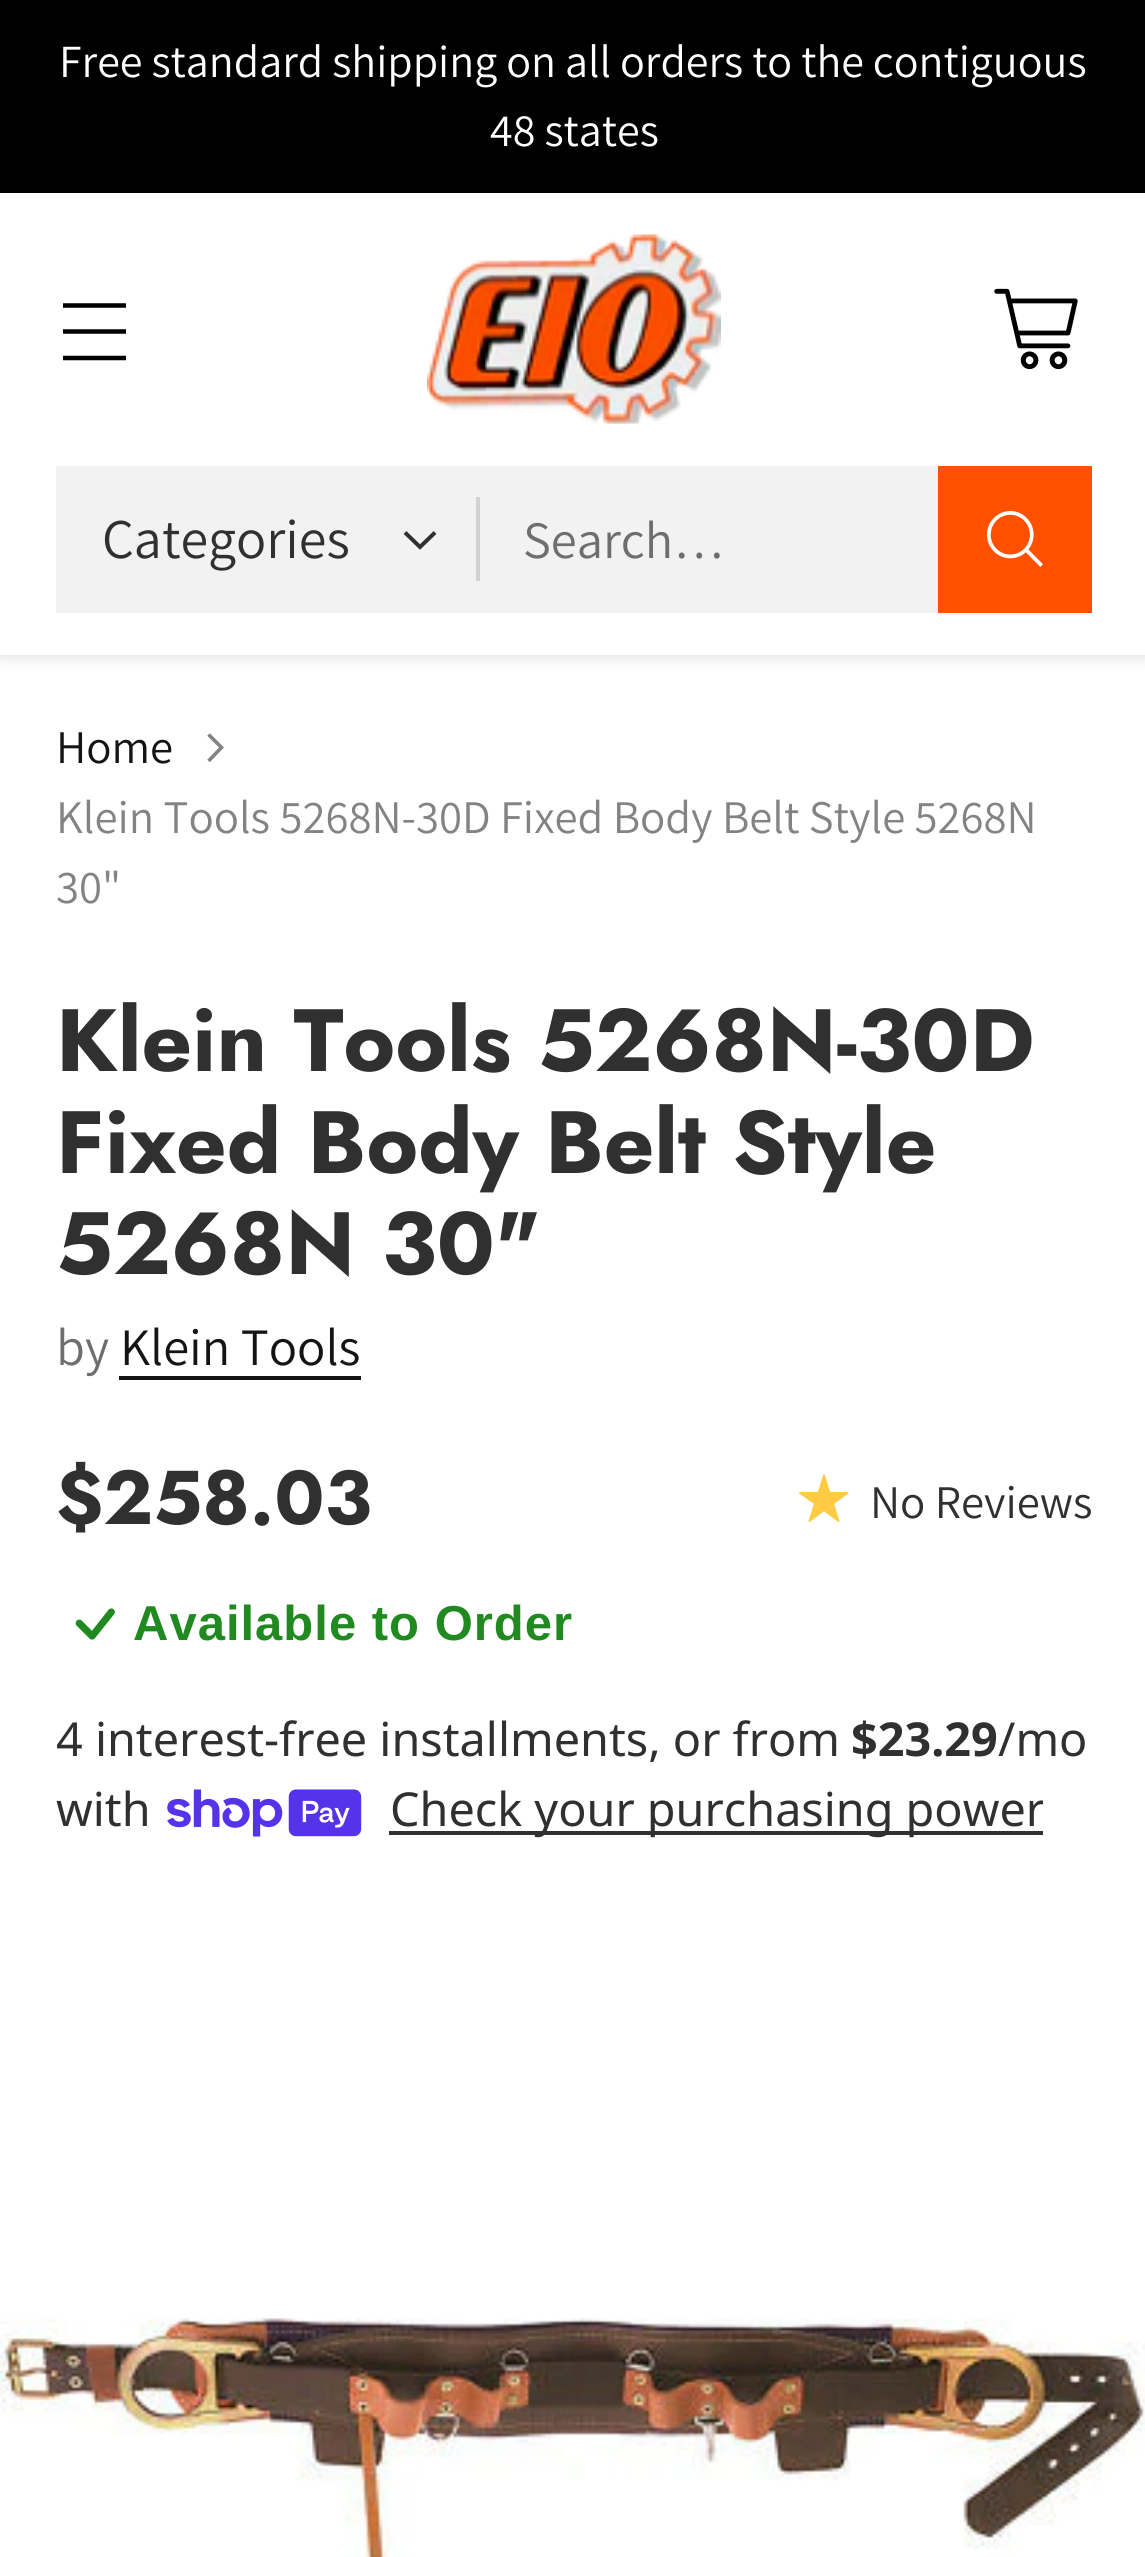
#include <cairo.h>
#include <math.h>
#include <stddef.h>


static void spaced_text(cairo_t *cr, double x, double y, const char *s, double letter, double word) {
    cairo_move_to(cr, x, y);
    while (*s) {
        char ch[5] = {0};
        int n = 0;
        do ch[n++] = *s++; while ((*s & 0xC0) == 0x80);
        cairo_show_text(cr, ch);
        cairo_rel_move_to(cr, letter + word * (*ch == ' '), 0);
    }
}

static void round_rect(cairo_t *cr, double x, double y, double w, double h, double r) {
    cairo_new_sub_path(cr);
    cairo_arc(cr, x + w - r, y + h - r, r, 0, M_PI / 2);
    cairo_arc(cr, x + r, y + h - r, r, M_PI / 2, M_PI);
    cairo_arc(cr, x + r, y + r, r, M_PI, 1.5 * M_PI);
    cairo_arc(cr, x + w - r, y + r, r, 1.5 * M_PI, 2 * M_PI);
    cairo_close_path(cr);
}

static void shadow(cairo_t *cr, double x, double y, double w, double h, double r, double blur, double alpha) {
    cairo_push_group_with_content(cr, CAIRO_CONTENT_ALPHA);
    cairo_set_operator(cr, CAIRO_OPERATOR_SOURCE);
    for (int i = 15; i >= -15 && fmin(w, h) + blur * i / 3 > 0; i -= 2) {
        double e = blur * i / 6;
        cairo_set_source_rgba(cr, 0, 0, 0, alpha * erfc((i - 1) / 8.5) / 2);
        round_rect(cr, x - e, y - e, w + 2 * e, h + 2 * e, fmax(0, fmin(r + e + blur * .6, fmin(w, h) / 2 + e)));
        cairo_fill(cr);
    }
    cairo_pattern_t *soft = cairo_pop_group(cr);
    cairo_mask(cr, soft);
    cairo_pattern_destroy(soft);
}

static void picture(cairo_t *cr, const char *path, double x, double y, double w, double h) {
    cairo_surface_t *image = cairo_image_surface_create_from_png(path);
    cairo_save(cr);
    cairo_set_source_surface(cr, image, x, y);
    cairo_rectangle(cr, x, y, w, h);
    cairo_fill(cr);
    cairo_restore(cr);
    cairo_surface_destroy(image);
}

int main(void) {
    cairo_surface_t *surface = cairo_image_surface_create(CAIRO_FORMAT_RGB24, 1145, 2557);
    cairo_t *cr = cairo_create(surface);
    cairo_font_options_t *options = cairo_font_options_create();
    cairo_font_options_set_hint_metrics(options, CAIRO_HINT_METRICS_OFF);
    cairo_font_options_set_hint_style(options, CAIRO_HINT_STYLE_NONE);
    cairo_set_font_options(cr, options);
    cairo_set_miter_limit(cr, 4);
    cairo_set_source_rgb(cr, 1, 1, 1);
    cairo_paint(cr);
    cairo_set_source_rgb(cr, 0, 0, 0);
    shadow(cr, 0, 193, 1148, 462, 0, 9, 0.15);
    cairo_set_source_rgb(cr, 0, 0, 0);
    cairo_rectangle(cr, 0, 0, 1145, 193);
    cairo_fill(cr);
    cairo_select_font_face(cr, "Assistant", CAIRO_FONT_SLANT_NORMAL, CAIRO_FONT_WEIGHT_NORMAL);
    cairo_set_font_size(cr, 46);
    cairo_set_source_rgb(cr, 1, 1, 1);
    spaced_text(cr, 59, 77, "Free standard shipping on all orders to the contiguous", 0, -0.25);
    cairo_move_to(cr, 490, 146);
    cairo_show_text(cr, "48 states");
    cairo_rectangle(cr, 0, 193, 1145, 462);
    cairo_fill(cr);
    cairo_new_path(cr);
    cairo_move_to(cr, 63, 331.5);
    cairo_line_to(cr, 126, 331.5);
    cairo_move_to(cr, 63, 305.5);
    cairo_line_to(cr, 126, 305.5);
    cairo_move_to(cr, 63, 358);
    cairo_line_to(cr, 126, 358);
    cairo_set_source_rgb(cr, 0, 0, 0);
    cairo_set_line_width(cr, 4.5);
    cairo_stroke(cr);
    picture(cr, "img1.png", 427, 234, 294, 190);
    picture(cr, "img2.png", 994, 288, 84, 82);
    cairo_rectangle(cr, 58, 468, 1032, 143);
    cairo_set_source_rgb(cr, 0.949, 0.949, 0.949);
    cairo_set_line_width(cr, 4);
    cairo_stroke(cr);
    cairo_rectangle(cr, 60, 470, 878, 139);
    cairo_fill(cr);
    cairo_set_font_size(cr, 56);
    cairo_set_source_rgb(cr, 0.188, 0.188, 0.188);
    cairo_move_to(cr, 102, 558);
    cairo_show_text(cr, "Categories");
    cairo_new_path(cr);
    cairo_move_to(cr, 405, 532.5);
    cairo_line_to(cr, 420, 547);
    cairo_line_to(cr, 435, 532.5);
    cairo_stroke(cr);
    cairo_set_source_rgb(cr, 0.824, 0.824, 0.824);
    cairo_rectangle(cr, 476, 497, 4, 84);
    cairo_fill(cr);
    cairo_set_font_size(cr, 52.5);
    cairo_set_source_rgb(cr, 0.431, 0.431, 0.431);
    cairo_move_to(cr, 523, 558);
    cairo_show_text(cr, "Search…");
    cairo_set_source_rgb(cr, 1, 0.314, 0);
    cairo_rectangle(cr, 938, 466, 154, 147);
    cairo_fill(cr);
    picture(cr, "img3.png", 987, 511, 56, 56);
    cairo_set_font_size(cr, 46.75);
    cairo_set_source_rgb(cr, 0.082, 0.082, 0.082);
    cairo_move_to(cr, 56, 763);
    cairo_show_text(cr, "Home");
    cairo_save(cr);
    cairo_new_path(cr);
    cairo_move_to(cr, 197.5, 762);
    cairo_line_to(cr, 197.5, 730.5);
    cairo_line_to(cr, 229, 730.5);
    cairo_line_to(cr, 229, 762);
    cairo_close_path(cr);
    cairo_clip(cr);
    cairo_new_path(cr);
    cairo_move_to(cr, 208.5, 761);
    cairo_line_to(cr, 221.5, 747.5);
    cairo_line_to(cr, 208.5, 734.5);
    cairo_set_source_rgb(cr, 0.514, 0.514, 0.514);
    cairo_set_line_width(cr, 3.6);
    cairo_stroke(cr);
    cairo_restore(cr);
    cairo_set_source_rgb(cr, 0.514, 0.514, 0.514);
    cairo_move_to(cr, 56, 833);
    cairo_show_text(cr, "Klein Tools 5268N-30D Fixed Body Belt Style 5268N");
    cairo_move_to(cr, 56, 903);
    cairo_show_text(cr, "30\"");
    cairo_select_font_face(cr, "Jost", CAIRO_FONT_SLANT_NORMAL, CAIRO_FONT_WEIGHT_BOLD);
    cairo_set_font_size(cr, 88.25);
    cairo_set_source_rgb(cr, 0.188, 0.188, 0.188);
    cairo_move_to(cr, 56, 1071);
    cairo_show_text(cr, "Klein Tools 5268N-30D");
    cairo_move_to(cr, 56, 1173);
    cairo_show_text(cr, "Fixed Body Belt Style");
    cairo_move_to(cr, 56, 1274);
    cairo_show_text(cr, "5268N 30\"");
    cairo_select_font_face(cr, "Assistant", CAIRO_FONT_SLANT_NORMAL, CAIRO_FONT_WEIGHT_NORMAL);
    cairo_set_font_size(cr, 52.5);
    cairo_set_source_rgb(cr, 0.431, 0.431, 0.431);
    cairo_move_to(cr, 56, 1365);
    cairo_show_text(cr, "by");
    cairo_set_source_rgb(cr, 0.082, 0.082, 0.082);
    cairo_move_to(cr, 120, 1365);
    cairo_show_text(cr, "Klein Tools");
    cairo_rectangle(cr, 119, 1376, 242, 4);
    cairo_fill(cr);
    cairo_select_font_face(cr, "Jost", CAIRO_FONT_SLANT_NORMAL, CAIRO_FONT_WEIGHT_BOLD);
    cairo_set_font_size(cr, 76);
    cairo_set_source_rgb(cr, 0.188, 0.188, 0.188);
    cairo_move_to(cr, 56, 1524);
    cairo_show_text(cr, "$258.03");
    cairo_set_source_rgb(cr, 1, 0.796, 0.259);
    cairo_new_path(cr);
    cairo_move_to(cr, 824, 1476);
    cairo_line_to(cr, 830, 1493);
    cairo_line_to(cr, 848, 1493);
    cairo_line_to(cr, 833, 1504);
    cairo_line_to(cr, 839, 1521);
    cairo_line_to(cr, 824, 1510);
    cairo_line_to(cr, 809, 1521);
    cairo_line_to(cr, 815, 1504);
    cairo_line_to(cr, 800, 1493);
    cairo_line_to(cr, 818, 1493);
    cairo_close_path(cr);
    cairo_fill(cr);
    cairo_new_path(cr);
    cairo_move_to(cr, 824, 1475.5);
    cairo_line_to(cr, 829.5, 1493);
    cairo_line_to(cr, 847.5, 1493);
    cairo_line_to(cr, 833, 1503.5);
    cairo_line_to(cr, 838.5, 1521);
    cairo_line_to(cr, 824, 1510);
    cairo_line_to(cr, 809.5, 1521);
    cairo_line_to(cr, 815, 1503.5);
    cairo_line_to(cr, 800, 1493);
    cairo_line_to(cr, 818.5, 1493);
    cairo_close_path(cr);
    cairo_set_line_width(cr, 1.9);
    cairo_set_line_cap(cr, CAIRO_LINE_CAP_SQUARE);
    cairo_set_line_join(cr, CAIRO_LINE_JOIN_ROUND);
    cairo_stroke(cr);
    cairo_select_font_face(cr, "Assistant", CAIRO_FONT_SLANT_NORMAL, CAIRO_FONT_WEIGHT_NORMAL);
    cairo_set_font_size(cr, 46.75);
    cairo_set_source_rgb(cr, 0.188, 0.188, 0.188);
    cairo_move_to(cr, 870, 1518);
    cairo_show_text(cr, "No Reviews");
    picture(cr, "img4.png", 75, 1608, 40, 32);
    cairo_select_font_face(cr, "Liberation Sans", CAIRO_FONT_SLANT_NORMAL, CAIRO_FONT_WEIGHT_BOLD);
    cairo_set_font_size(cr, 49);
    cairo_set_source_rgb(cr, 0.125, 0.537, 0.125);
    spaced_text(cr, 133, 1640, "Available to Order", 1, 0);
    cairo_select_font_face(cr, "Noto Sans", CAIRO_FONT_SLANT_NORMAL, CAIRO_FONT_WEIGHT_NORMAL);
    cairo_set_font_size(cr, 46.75);
    cairo_set_source_rgb(cr, 0.188, 0.188, 0.188);
    cairo_move_to(cr, 56, 1756);
    cairo_show_text(cr, "4 interest-free installments, or from");
    cairo_select_font_face(cr, "Noto Sans", CAIRO_FONT_SLANT_NORMAL, CAIRO_FONT_WEIGHT_BOLD);
    cairo_move_to(cr, 851, 1756);
    cairo_show_text(cr, "$23.29");
    cairo_select_font_face(cr, "Noto Sans", CAIRO_FONT_SLANT_NORMAL, CAIRO_FONT_WEIGHT_NORMAL);
    cairo_move_to(cr, 998, 1756);
    cairo_show_text(cr, "/mo");
    cairo_move_to(cr, 56, 1826);
    cairo_show_text(cr, "with");
    picture(cr, "img5.png", 167, 1789, 195, 48);
    cairo_rectangle(cr, 389, 1831, 654, 4);
    cairo_fill(cr);
    cairo_save(cr);
    cairo_rectangle(cr, 389, 1775, 654, 70);
    cairo_clip(cr);
    cairo_move_to(cr, 390, 1826);
    cairo_show_text(cr, "Check your purchasing power");
    cairo_restore(cr);
    picture(cr, "img6.png", 0, 2318, 1145, 239);
    cairo_surface_write_to_png(surface, "page.png");
    cairo_font_options_destroy(options);
    cairo_destroy(cr);
    cairo_surface_destroy(surface);
    return 0;
}
